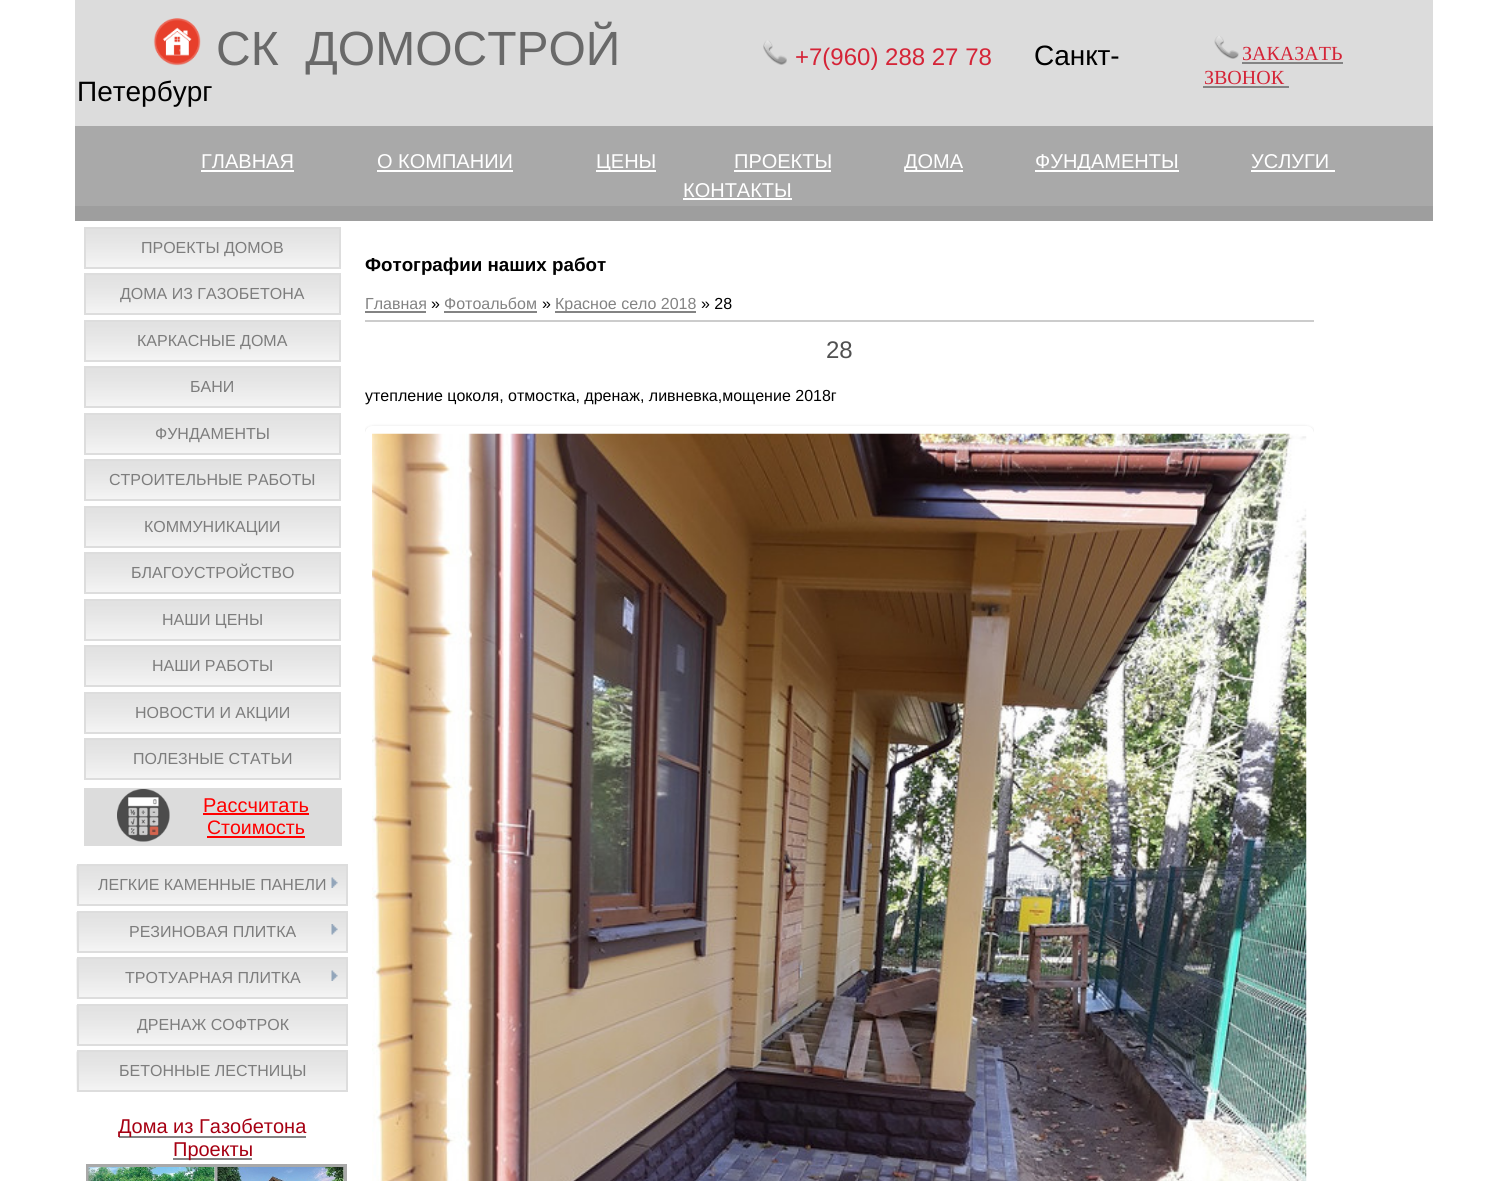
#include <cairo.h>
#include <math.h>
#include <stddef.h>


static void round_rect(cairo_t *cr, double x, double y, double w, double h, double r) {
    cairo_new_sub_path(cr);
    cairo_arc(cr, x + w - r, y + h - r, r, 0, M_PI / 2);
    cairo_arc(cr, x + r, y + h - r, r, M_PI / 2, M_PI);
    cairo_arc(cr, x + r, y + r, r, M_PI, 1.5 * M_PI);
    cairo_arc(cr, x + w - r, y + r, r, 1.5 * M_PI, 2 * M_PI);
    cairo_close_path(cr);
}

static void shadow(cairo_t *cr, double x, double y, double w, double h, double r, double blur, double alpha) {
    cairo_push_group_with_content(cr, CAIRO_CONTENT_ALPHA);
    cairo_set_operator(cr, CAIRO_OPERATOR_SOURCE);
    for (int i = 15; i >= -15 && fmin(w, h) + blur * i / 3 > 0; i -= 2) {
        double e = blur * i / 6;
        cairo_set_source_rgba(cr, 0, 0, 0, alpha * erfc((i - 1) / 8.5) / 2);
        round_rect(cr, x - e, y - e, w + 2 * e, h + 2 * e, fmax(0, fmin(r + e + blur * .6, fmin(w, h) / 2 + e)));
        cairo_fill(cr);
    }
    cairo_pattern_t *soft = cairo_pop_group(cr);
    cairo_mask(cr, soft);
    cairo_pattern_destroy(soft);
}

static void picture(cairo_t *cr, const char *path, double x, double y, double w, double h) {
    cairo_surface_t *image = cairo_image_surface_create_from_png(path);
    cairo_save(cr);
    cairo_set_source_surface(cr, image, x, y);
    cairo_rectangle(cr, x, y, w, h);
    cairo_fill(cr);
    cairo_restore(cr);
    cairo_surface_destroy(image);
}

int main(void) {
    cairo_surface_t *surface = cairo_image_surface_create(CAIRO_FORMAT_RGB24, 1507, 1181);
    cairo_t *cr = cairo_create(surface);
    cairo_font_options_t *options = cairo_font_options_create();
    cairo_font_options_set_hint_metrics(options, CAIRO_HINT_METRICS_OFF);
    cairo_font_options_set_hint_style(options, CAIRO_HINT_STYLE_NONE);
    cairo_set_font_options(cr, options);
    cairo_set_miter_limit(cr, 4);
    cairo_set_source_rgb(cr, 1, 1, 1);
    cairo_paint(cr);
    cairo_set_source_rgb(cr, 0.863, 0.863, 0.863);
    cairo_rectangle(cr, 75, 0, 1358, 126);
    cairo_fill(cr);
    picture(cr, "img1.png", 153, 18, 48, 48);
    cairo_select_font_face(cr, "Liberation Sans", CAIRO_FONT_SLANT_NORMAL, CAIRO_FONT_WEIGHT_NORMAL);
    cairo_set_font_size(cr, 48);
    cairo_set_source_rgb(cr, 0.412, 0.412, 0.412);
    cairo_move_to(cr, 216, 65);
    cairo_show_text(cr, "СК  ДОМОСТРОЙ");
    picture(cr, "img2.png", 763, 40, 24, 25);
    cairo_set_font_size(cr, 24);
    cairo_set_source_rgb(cr, 0.835, 0.141, 0.216);
    cairo_move_to(cr, 795, 65);
    cairo_show_text(cr, "+7(960) 288 27 78");
    cairo_set_font_size(cr, 28);
    cairo_set_source_rgb(cr, 0, 0, 0);
    cairo_move_to(cr, 1034, 65);
    cairo_show_text(cr, "Санкт-");
    cairo_move_to(cr, 77, 101);
    cairo_show_text(cr, "Петербург");
    picture(cr, "img3.png", 1214, 36, 25, 23);
    cairo_select_font_face(cr, "Liberation Serif", CAIRO_FONT_SLANT_NORMAL, CAIRO_FONT_WEIGHT_NORMAL);
    cairo_set_font_size(cr, 20);
    cairo_set_source_rgb(cr, 0.835, 0.141, 0.216);
    cairo_move_to(cr, 1242, 60);
    cairo_show_text(cr, "ЗАКАЗАТЬ");
    cairo_set_source_rgb(cr, 0.514, 0.514, 0.514);
    cairo_rectangle(cr, 1242, 62, 101, 2);
    cairo_fill(cr);
    cairo_set_source_rgb(cr, 0.835, 0.141, 0.216);
    cairo_move_to(cr, 1204, 84);
    cairo_show_text(cr, "ЗВОНОК");
    cairo_set_source_rgb(cr, 0.514, 0.514, 0.514);
    cairo_rectangle(cr, 1203, 86, 86, 2);
    cairo_fill(cr);
    cairo_set_source_rgb(cr, 0.663, 0.663, 0.663);
    cairo_rectangle(cr, 75, 126, 1358, 80);
    cairo_fill(cr);
    cairo_select_font_face(cr, "Liberation Sans", CAIRO_FONT_SLANT_NORMAL, CAIRO_FONT_WEIGHT_NORMAL);
    cairo_set_source_rgb(cr, 1, 1, 1);
    cairo_move_to(cr, 201, 168);
    cairo_show_text(cr, "ГЛАВНАЯ");
    cairo_rectangle(cr, 201, 170, 93, 2);
    cairo_fill(cr);
    cairo_move_to(cr, 377, 168);
    cairo_show_text(cr, "О КОМПАНИИ");
    cairo_rectangle(cr, 377, 170, 136, 2);
    cairo_fill(cr);
    cairo_rectangle(cr, 596, 170, 60, 2);
    cairo_fill(cr);
    cairo_move_to(cr, 596, 168);
    cairo_show_text(cr, "ЦЕНЫ");
    cairo_move_to(cr, 734, 168);
    cairo_show_text(cr, "ПРОЕКТЫ");
    cairo_rectangle(cr, 734, 170, 97, 2);
    cairo_fill(cr);
    cairo_rectangle(cr, 905, 170, 58, 2);
    cairo_fill(cr);
    cairo_move_to(cr, 904, 168);
    cairo_show_text(cr, "ДОМА");
    cairo_rectangle(cr, 1035, 170, 144, 2);
    cairo_fill(cr);
    cairo_move_to(cr, 1035, 168);
    cairo_show_text(cr, "ФУНДАМЕНТЫ");
    cairo_move_to(cr, 1251, 168);
    cairo_show_text(cr, "УСЛУГИ");
    cairo_rectangle(cr, 1251, 170, 84, 2);
    cairo_fill(cr);
    cairo_move_to(cr, 683, 197);
    cairo_show_text(cr, "КОНТАКТЫ");
    cairo_rectangle(cr, 683, 198, 109, 2);
    cairo_fill(cr);
    cairo_set_source_rgb(cr, 0.62, 0.62, 0.62);
    cairo_rectangle(cr, 75, 206, 1358, 15);
    cairo_fill(cr);
    picture(cr, "img4.png", 86, 229, 253, 38);
    cairo_rectangle(cr, 85, 228, 255, 40);
    cairo_set_source_rgb(cr, 0.867, 0.867, 0.867);
    cairo_stroke(cr);
    cairo_set_font_size(cr, 16);
    cairo_set_source_rgb(cr, 0.49, 0.49, 0.49);
    cairo_move_to(cr, 141, 253);
    cairo_show_text(cr, "ПРОЕКТЫ ДОМОВ");
    picture(cr, "img5.png", 86, 275, 253, 38);
    cairo_rectangle(cr, 85, 274, 255, 40);
    cairo_set_source_rgb(cr, 0.867, 0.867, 0.867);
    cairo_stroke(cr);
    cairo_set_source_rgb(cr, 0.49, 0.49, 0.49);
    cairo_move_to(cr, 120, 299);
    cairo_show_text(cr, "ДОМА ИЗ ГАЗОБЕТОНА");
    picture(cr, "img4.png", 86, 322, 253, 38);
    cairo_rectangle(cr, 85, 321, 255, 40);
    cairo_set_source_rgb(cr, 0.867, 0.867, 0.867);
    cairo_stroke(cr);
    cairo_set_source_rgb(cr, 0.49, 0.49, 0.49);
    cairo_move_to(cr, 137, 346);
    cairo_show_text(cr, "КАРКАСНЫЕ ДОМА");
    picture(cr, "img5.png", 86, 368, 253, 38);
    cairo_rectangle(cr, 85, 367, 255, 40);
    cairo_set_source_rgb(cr, 0.867, 0.867, 0.867);
    cairo_stroke(cr);
    cairo_set_source_rgb(cr, 0.49, 0.49, 0.49);
    cairo_move_to(cr, 190, 392);
    cairo_show_text(cr, "БАНИ");
    picture(cr, "img4.png", 86, 415, 253, 38);
    cairo_rectangle(cr, 85, 414, 255, 40);
    cairo_set_source_rgb(cr, 0.867, 0.867, 0.867);
    cairo_stroke(cr);
    cairo_set_source_rgb(cr, 0.49, 0.49, 0.49);
    cairo_move_to(cr, 155, 439);
    cairo_show_text(cr, "ФУНДАМЕНТЫ");
    picture(cr, "img5.png", 86, 461, 253, 38);
    cairo_rectangle(cr, 85, 460, 255, 40);
    cairo_set_source_rgb(cr, 0.867, 0.867, 0.867);
    cairo_stroke(cr);
    cairo_set_source_rgb(cr, 0.49, 0.49, 0.49);
    cairo_move_to(cr, 109, 485);
    cairo_show_text(cr, "СТРОИТЕЛЬНЫЕ РАБОТЫ");
    picture(cr, "img4.png", 86, 508, 253, 38);
    cairo_rectangle(cr, 85, 507, 255, 40);
    cairo_set_source_rgb(cr, 0.867, 0.867, 0.867);
    cairo_stroke(cr);
    cairo_set_source_rgb(cr, 0.49, 0.49, 0.49);
    cairo_move_to(cr, 144, 532);
    cairo_show_text(cr, "КОММУНИКАЦИИ");
    picture(cr, "img5.png", 86, 554, 253, 38);
    cairo_rectangle(cr, 85, 553, 255, 40);
    cairo_set_source_rgb(cr, 0.867, 0.867, 0.867);
    cairo_stroke(cr);
    cairo_set_source_rgb(cr, 0.49, 0.49, 0.49);
    cairo_move_to(cr, 131, 578);
    cairo_show_text(cr, "БЛАГОУСТРОЙСТВО");
    picture(cr, "img4.png", 86, 601, 253, 38);
    cairo_rectangle(cr, 85, 600, 255, 40);
    cairo_set_source_rgb(cr, 0.867, 0.867, 0.867);
    cairo_stroke(cr);
    cairo_set_source_rgb(cr, 0.49, 0.49, 0.49);
    cairo_move_to(cr, 162, 625);
    cairo_show_text(cr, "НАШИ ЦЕНЫ");
    picture(cr, "img5.png", 86, 647, 253, 38);
    cairo_rectangle(cr, 85, 646, 255, 40);
    cairo_set_source_rgb(cr, 0.867, 0.867, 0.867);
    cairo_stroke(cr);
    cairo_set_source_rgb(cr, 0.49, 0.49, 0.49);
    cairo_move_to(cr, 152, 671);
    cairo_show_text(cr, "НАШИ РАБОТЫ");
    picture(cr, "img4.png", 86, 694, 253, 38);
    cairo_rectangle(cr, 85, 693, 255, 40);
    cairo_set_source_rgb(cr, 0.867, 0.867, 0.867);
    cairo_stroke(cr);
    cairo_set_source_rgb(cr, 0.49, 0.49, 0.49);
    cairo_move_to(cr, 135, 718);
    cairo_show_text(cr, "НОВОСТИ И АКЦИИ");
    picture(cr, "img5.png", 86, 740, 253, 38);
    cairo_rectangle(cr, 85, 739, 255, 40);
    cairo_set_source_rgb(cr, 0.867, 0.867, 0.867);
    cairo_stroke(cr);
    cairo_set_source_rgb(cr, 0.49, 0.49, 0.49);
    cairo_move_to(cr, 133, 764);
    cairo_show_text(cr, "ПОЛЕЗНЫЕ СТАТЬИ");
    cairo_set_source_rgb(cr, 0.863, 0.863, 0.863);
    cairo_rectangle(cr, 84, 788, 258, 58);
    cairo_fill(cr);
    picture(cr, "img6.png", 117, 789, 53, 53);
    cairo_set_font_size(cr, 20);
    cairo_set_source_rgb(cr, 1, 0, 0);
    cairo_move_to(cr, 203, 812);
    cairo_show_text(cr, "Рассчитать");
    cairo_rectangle(cr, 203, 813, 106, 2);
    cairo_fill(cr);
    cairo_set_font_size(cr, 19.5);
    cairo_move_to(cr, 207, 834);
    cairo_show_text(cr, "Стоимость");
    cairo_rectangle(cr, 207, 836, 98, 2);
    cairo_fill(cr);
    picture(cr, "img7.png", 76, 865, 270, 41);
    cairo_rectangle(cr, 78, 865, 269, 40);
    cairo_set_source_rgb(cr, 0.867, 0.867, 0.867);
    cairo_stroke(cr);
    cairo_set_font_size(cr, 16);
    cairo_set_source_rgb(cr, 0.49, 0.49, 0.49);
    cairo_move_to(cr, 98, 890);
    cairo_show_text(cr, "ЛЕГКИЕ КАМЕННЫЕ ПАНЕЛИ");
    picture(cr, "img8.png", 331, 877, 7, 11);
    picture(cr, "img9.png", 76, 912, 270, 41);
    cairo_rectangle(cr, 78, 912, 269, 40);
    cairo_set_source_rgb(cr, 0.867, 0.867, 0.867);
    cairo_stroke(cr);
    cairo_set_source_rgb(cr, 0.49, 0.49, 0.49);
    cairo_move_to(cr, 129, 937);
    cairo_show_text(cr, "РЕЗИНОВАЯ ПЛИТКА");
    picture(cr, "img10.png", 331, 924, 7, 11);
    picture(cr, "img7.png", 76, 958, 270, 41);
    cairo_rectangle(cr, 78, 958, 269, 40);
    cairo_set_source_rgb(cr, 0.867, 0.867, 0.867);
    cairo_stroke(cr);
    cairo_set_source_rgb(cr, 0.49, 0.49, 0.49);
    cairo_move_to(cr, 125, 983);
    cairo_show_text(cr, "ТРОТУАРНАЯ ПЛИТКА");
    picture(cr, "img8.png", 331, 970, 7, 11);
    picture(cr, "img9.png", 76, 1005, 270, 41);
    cairo_rectangle(cr, 78, 1005, 269, 40);
    cairo_set_source_rgb(cr, 0.867, 0.867, 0.867);
    cairo_stroke(cr);
    cairo_set_source_rgb(cr, 0.49, 0.49, 0.49);
    cairo_move_to(cr, 137, 1030);
    cairo_show_text(cr, "ДРЕНАЖ СОФТРОК");
    picture(cr, "img7.png", 76, 1051, 270, 41);
    cairo_rectangle(cr, 78, 1051, 269, 40);
    cairo_set_source_rgb(cr, 0.867, 0.867, 0.867);
    cairo_stroke(cr);
    cairo_set_source_rgb(cr, 0.49, 0.49, 0.49);
    cairo_move_to(cr, 119, 1076);
    cairo_show_text(cr, "БЕТОННЫЕ ЛЕСТНИЦЫ");
    cairo_set_source_rgb(cr, 0.514, 0.514, 0.514);
    cairo_rectangle(cr, 119, 1136, 187, 2);
    cairo_fill(cr);
    cairo_set_font_size(cr, 20);
    cairo_set_source_rgb(cr, 0.651, 0, 0.071);
    cairo_move_to(cr, 118, 1133);
    cairo_show_text(cr, "Дома из Газобетона");
    cairo_set_source_rgb(cr, 0.514, 0.514, 0.514);
    cairo_rectangle(cr, 173, 1158, 79, 2);
    cairo_fill(cr);
    cairo_set_source_rgb(cr, 0.651, 0, 0.071);
    cairo_move_to(cr, 173, 1156);
    cairo_show_text(cr, "Проекты");
    cairo_rectangle(cr, 87.5, 1165.5, 129, 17);
    cairo_set_source_rgb(cr, 0.663, 0.663, 0.663);
    cairo_set_line_width(cr, 3);
    cairo_stroke(cr);
    picture(cr, "img11.png", 88, 1167, 127, 14);
    cairo_rectangle(cr, 216.5, 1165.5, 129, 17);
    cairo_stroke(cr);
    picture(cr, "img12.png", 217, 1167, 127, 14);
    cairo_select_font_face(cr, "Liberation Sans", CAIRO_FONT_SLANT_NORMAL, CAIRO_FONT_WEIGHT_BOLD);
    cairo_set_font_size(cr, 18.75);
    cairo_set_source_rgb(cr, 0, 0, 0);
    cairo_move_to(cr, 365, 271);
    cairo_show_text(cr, "Фотографии наших работ");
    cairo_select_font_face(cr, "Liberation Sans", CAIRO_FONT_SLANT_NORMAL, CAIRO_FONT_WEIGHT_NORMAL);
    cairo_set_font_size(cr, 16);
    cairo_set_source_rgb(cr, 0.514, 0.514, 0.514);
    cairo_move_to(cr, 365, 309);
    cairo_show_text(cr, "Главная");
    cairo_rectangle(cr, 365, 311, 61, 2);
    cairo_fill(cr);
    cairo_set_source_rgb(cr, 0, 0, 0);
    cairo_move_to(cr, 431, 309);
    cairo_show_text(cr, "»");
    cairo_set_source_rgb(cr, 0.514, 0.514, 0.514);
    cairo_move_to(cr, 444, 309);
    cairo_show_text(cr, "Фотоальбом");
    cairo_rectangle(cr, 444, 311, 93, 2);
    cairo_fill(cr);
    cairo_set_source_rgb(cr, 0, 0, 0);
    cairo_move_to(cr, 542, 309);
    cairo_show_text(cr, "»");
    cairo_set_source_rgb(cr, 0.514, 0.514, 0.514);
    cairo_rectangle(cr, 555, 311, 141, 2);
    cairo_fill(cr);
    cairo_move_to(cr, 555, 309);
    cairo_show_text(cr, "Красное село 2018");
    cairo_set_source_rgb(cr, 0, 0, 0);
    cairo_move_to(cr, 701, 309);
    cairo_show_text(cr, "» 28");
    cairo_set_source_rgb(cr, 0.8, 0.8, 0.8);
    cairo_rectangle(cr, 365, 320, 949, 2);
    cairo_fill(cr);
    cairo_set_font_size(cr, 24);
    cairo_set_source_rgb(cr, 0.314, 0.314, 0.314);
    cairo_move_to(cr, 826, 358);
    cairo_show_text(cr, "28");
    cairo_set_font_size(cr, 16);
    cairo_set_source_rgb(cr, 0, 0, 0);
    cairo_move_to(cr, 365, 401);
    cairo_show_text(cr, "утепление цоколя, отмостка, дренаж, ливневка,мощение 2018г");
    cairo_save(cr);
    cairo_rectangle(cr, 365, 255, 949, 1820);
    cairo_clip(cr);
    cairo_set_fill_rule(cr, CAIRO_FILL_RULE_EVEN_ODD);
    cairo_new_path(cr);
    cairo_move_to(cr, 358, 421);
    cairo_line_to(cr, 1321, 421);
    cairo_line_to(cr, 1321, 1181);
    cairo_line_to(cr, 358, 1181);
    cairo_close_path(cr);
    cairo_move_to(cr, 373, 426);
    cairo_line_to(cr, 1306, 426);
    cairo_curve_to(cr, 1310.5, 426, 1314, 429.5, 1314, 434);
    cairo_line_to(cr, 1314, 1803);
    cairo_curve_to(cr, 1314, 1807.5, 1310.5, 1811, 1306, 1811);
    cairo_line_to(cr, 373, 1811);
    cairo_curve_to(cr, 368.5, 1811, 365, 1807.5, 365, 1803);
    cairo_line_to(cr, 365, 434);
    cairo_curve_to(cr, 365, 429.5, 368.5, 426, 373, 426);
    cairo_close_path(cr);
    cairo_clip(cr);
    cairo_set_source_rgb(cr, 0, 0, 0);
    shadow(cr, 365, 428, 949, 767, 8, 2, 0.37);
    cairo_restore(cr);
    picture(cr, "img13.png", 372, 433, 935, 748);
    cairo_surface_write_to_png(surface, "page.png");
    cairo_font_options_destroy(options);
    cairo_destroy(cr);
    cairo_surface_destroy(surface);
    return 0;
}
